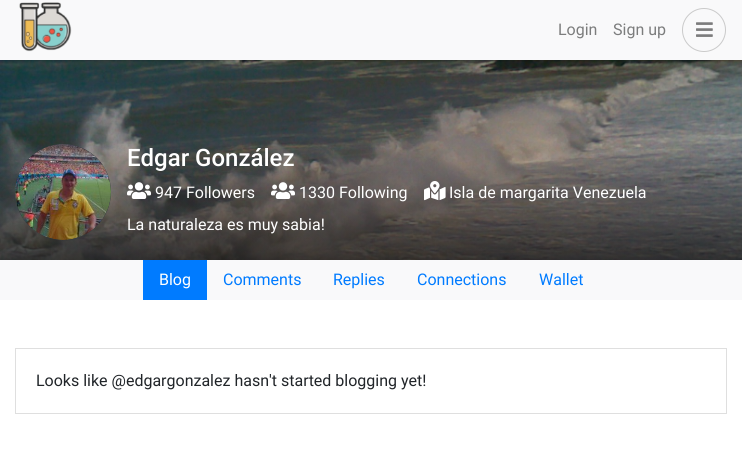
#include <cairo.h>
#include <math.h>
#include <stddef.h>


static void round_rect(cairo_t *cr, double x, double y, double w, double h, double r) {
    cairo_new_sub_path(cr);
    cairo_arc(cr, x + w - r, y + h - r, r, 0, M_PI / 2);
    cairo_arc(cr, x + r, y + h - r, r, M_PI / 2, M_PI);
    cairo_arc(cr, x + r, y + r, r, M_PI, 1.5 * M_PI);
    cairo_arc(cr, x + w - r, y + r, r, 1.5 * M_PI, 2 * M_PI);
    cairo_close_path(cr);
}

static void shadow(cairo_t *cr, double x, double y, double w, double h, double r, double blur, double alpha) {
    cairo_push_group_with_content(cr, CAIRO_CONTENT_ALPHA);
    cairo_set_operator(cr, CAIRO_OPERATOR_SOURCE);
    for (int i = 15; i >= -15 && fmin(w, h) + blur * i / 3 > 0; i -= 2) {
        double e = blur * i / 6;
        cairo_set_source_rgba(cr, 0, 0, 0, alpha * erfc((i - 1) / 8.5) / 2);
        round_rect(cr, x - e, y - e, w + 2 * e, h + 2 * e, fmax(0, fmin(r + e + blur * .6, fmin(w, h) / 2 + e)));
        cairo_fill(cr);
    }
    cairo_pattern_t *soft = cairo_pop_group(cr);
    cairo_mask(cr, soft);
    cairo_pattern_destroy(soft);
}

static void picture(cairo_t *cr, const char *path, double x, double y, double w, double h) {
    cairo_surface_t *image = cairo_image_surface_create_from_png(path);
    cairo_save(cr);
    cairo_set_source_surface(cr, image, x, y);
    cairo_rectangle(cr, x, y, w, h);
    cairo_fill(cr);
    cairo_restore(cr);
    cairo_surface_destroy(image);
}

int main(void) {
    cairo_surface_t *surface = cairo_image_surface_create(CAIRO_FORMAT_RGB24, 742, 462);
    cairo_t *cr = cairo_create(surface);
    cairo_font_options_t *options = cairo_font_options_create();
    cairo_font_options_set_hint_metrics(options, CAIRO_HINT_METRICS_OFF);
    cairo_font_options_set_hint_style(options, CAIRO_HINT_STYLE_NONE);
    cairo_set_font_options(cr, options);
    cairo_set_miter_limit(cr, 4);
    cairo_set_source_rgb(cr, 1, 1, 1);
    cairo_paint(cr);
    picture(cr, "img3.png", 0, 60, 742, 200);
    cairo_set_source_rgb(cr, 0, 0, 0);
    shadow(cr, 0, 1, 742, 60, 0, 1, 0.14);
    shadow(cr, 0, 1, 742, 60, 0, 1.5, 0.07);
    cairo_set_source_rgb(cr, 0.973, 0.976, 0.98);
    cairo_rectangle(cr, 0, 0, 742, 60);
    cairo_fill(cr);
    picture(cr, "img1.png", 19, 2, 53, 50);
    cairo_select_font_face(cr, "Roboto", CAIRO_FONT_SLANT_NORMAL, CAIRO_FONT_WEIGHT_NORMAL);
    cairo_set_font_size(cr, 16);
    cairo_set_source_rgb(cr, 0.486, 0.49, 0.49);
    cairo_move_to(cr, 558, 35);
    cairo_show_text(cr, "Login");
    cairo_move_to(cr, 613, 35);
    cairo_show_text(cr, "Sign up");
    cairo_new_path(cr);
    cairo_arc(cr, 704, 30, 21.5, 0, 2 * M_PI);
    cairo_set_source_rgb(cr, 0.792, 0.792, 0.792);
    cairo_set_line_width(cr, 1);
    cairo_stroke(cr);
    picture(cr, "img2.png", 696, 22, 17, 15);
    cairo_set_source_rgb(cr, 0.204, 0.227, 0.251);
    cairo_arc(cr, 63, 192, 48, 0, 2 * M_PI);
    cairo_fill(cr);
    picture(cr, "img4.png", 15, 144, 96, 96);
    cairo_select_font_face(cr, "Roboto Medium", CAIRO_FONT_SLANT_NORMAL, CAIRO_FONT_WEIGHT_NORMAL);
    cairo_set_font_size(cr, 24);
    cairo_set_source_rgb(cr, 1, 1, 1);
    cairo_move_to(cr, 127, 166);
    cairo_show_text(cr, "Edgar González");
    picture(cr, "img5.png", 127, 182, 24, 17);
    cairo_select_font_face(cr, "Roboto", CAIRO_FONT_SLANT_NORMAL, CAIRO_FONT_WEIGHT_NORMAL);
    cairo_set_font_size(cr, 16);
    cairo_move_to(cr, 155, 198);
    cairo_show_text(cr, "947 Followers");
    picture(cr, "img6.png", 271, 182, 24, 17);
    cairo_move_to(cr, 299, 198);
    cairo_show_text(cr, "1330 Following");
    picture(cr, "img7.png", 424, 181, 22, 20);
    cairo_move_to(cr, 449, 198);
    cairo_show_text(cr, "Isla de margarita Venezuela");
    cairo_move_to(cr, 127, 230);
    cairo_show_text(cr, "La naturaleza es muy sabia!");
    cairo_set_source_rgb(cr, 0.973, 0.976, 0.98);
    cairo_rectangle(cr, 0, 260, 742, 40);
    cairo_fill(cr);
    cairo_set_source_rgb(cr, 0, 0.482, 1);
    cairo_rectangle(cr, 143, 260, 64, 40);
    cairo_fill(cr);
    cairo_set_source_rgb(cr, 1, 1, 1);
    cairo_move_to(cr, 159, 285);
    cairo_show_text(cr, "Blog");
    cairo_set_source_rgb(cr, 0, 0.482, 1);
    cairo_move_to(cr, 223, 285);
    cairo_show_text(cr, "Comments");
    cairo_move_to(cr, 333, 285);
    cairo_show_text(cr, "Replies");
    cairo_move_to(cr, 417, 285);
    cairo_show_text(cr, "Connections");
    cairo_move_to(cr, 539, 285);
    cairo_show_text(cr, "Wallet");
    cairo_rectangle(cr, 15.5, 348.5, 711, 65);
    cairo_set_source_rgb(cr, 0.875, 0.875, 0.875);
    cairo_stroke(cr);
    cairo_set_source_rgb(cr, 0.129, 0.145, 0.161);
    cairo_move_to(cr, 36, 386);
    cairo_show_text(cr, "Looks like @edgargonzalez hasn't started blogging yet!");
    cairo_surface_write_to_png(surface, "page.png");
    cairo_font_options_destroy(options);
    cairo_destroy(cr);
    cairo_surface_destroy(surface);
    return 0;
}
